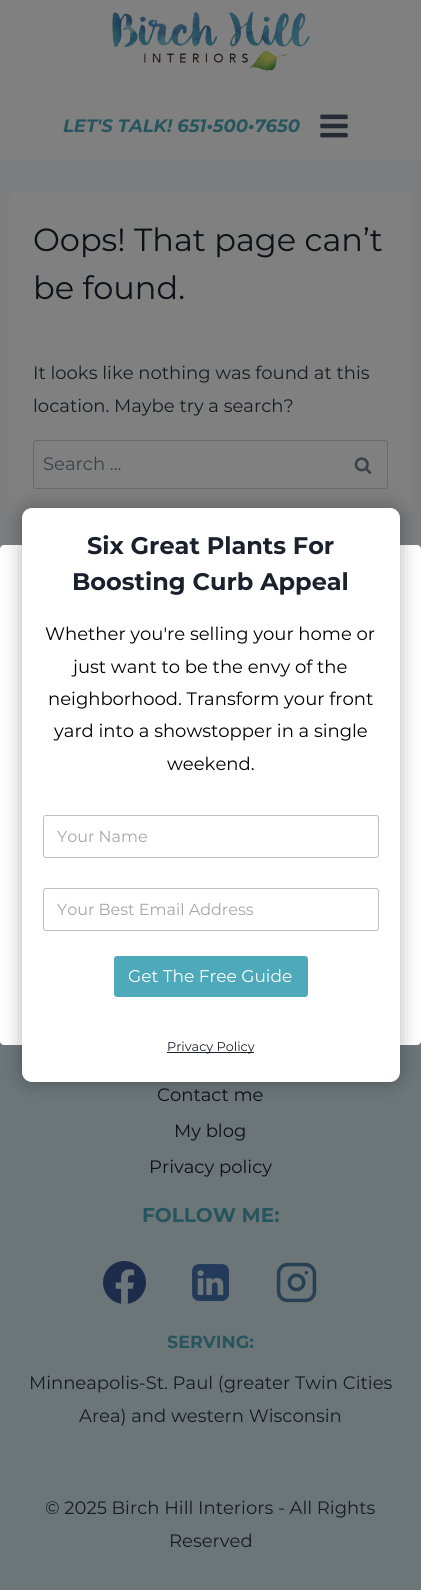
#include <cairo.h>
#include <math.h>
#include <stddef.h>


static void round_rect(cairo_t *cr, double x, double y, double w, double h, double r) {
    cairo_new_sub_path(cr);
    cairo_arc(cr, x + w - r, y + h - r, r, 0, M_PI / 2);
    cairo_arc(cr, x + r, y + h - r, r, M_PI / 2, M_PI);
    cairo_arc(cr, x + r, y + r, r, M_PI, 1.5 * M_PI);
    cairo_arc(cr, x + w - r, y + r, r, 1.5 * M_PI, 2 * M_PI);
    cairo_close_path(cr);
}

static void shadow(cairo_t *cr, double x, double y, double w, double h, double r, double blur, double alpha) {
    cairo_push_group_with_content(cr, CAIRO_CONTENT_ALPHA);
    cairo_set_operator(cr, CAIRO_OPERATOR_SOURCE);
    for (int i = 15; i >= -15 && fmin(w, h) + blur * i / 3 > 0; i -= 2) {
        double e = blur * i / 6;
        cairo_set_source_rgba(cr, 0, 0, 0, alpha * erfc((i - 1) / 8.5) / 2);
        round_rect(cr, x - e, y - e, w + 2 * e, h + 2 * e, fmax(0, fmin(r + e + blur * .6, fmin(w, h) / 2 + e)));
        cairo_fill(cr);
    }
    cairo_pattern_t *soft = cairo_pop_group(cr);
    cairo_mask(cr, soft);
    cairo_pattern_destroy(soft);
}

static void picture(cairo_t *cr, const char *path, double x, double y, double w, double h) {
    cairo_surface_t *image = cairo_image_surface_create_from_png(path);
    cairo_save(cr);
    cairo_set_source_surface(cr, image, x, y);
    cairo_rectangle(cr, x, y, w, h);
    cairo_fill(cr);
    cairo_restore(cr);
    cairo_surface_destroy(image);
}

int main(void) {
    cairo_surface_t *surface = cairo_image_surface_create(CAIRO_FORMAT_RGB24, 421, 1590);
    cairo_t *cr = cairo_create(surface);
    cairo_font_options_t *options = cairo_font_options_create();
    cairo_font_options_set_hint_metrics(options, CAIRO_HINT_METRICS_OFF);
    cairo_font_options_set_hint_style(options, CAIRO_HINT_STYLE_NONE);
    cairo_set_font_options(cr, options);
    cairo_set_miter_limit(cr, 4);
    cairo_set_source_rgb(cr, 0.486, 0.49, 0.494);
    cairo_paint(cr);
    cairo_set_source_rgb(cr, 0.502, 0.502, 0.502);
    cairo_rectangle(cr, 0, 0, 421, 160);
    cairo_fill(cr);
    picture(cr, "img1.png", 112, 11, 198, 60);
    cairo_select_font_face(cr, "Montserrat", CAIRO_FONT_SLANT_ITALIC, CAIRO_FONT_WEIGHT_BOLD);
    cairo_set_font_size(cr, 18);
    cairo_set_source_rgb(cr, 0.153, 0.333, 0.369);
    cairo_move_to(cr, 63, 132);
    cairo_show_text(cr, "LET'S TALK! 651•500•7650");
    picture(cr, "img2.png", 320, 114, 28, 24);
    cairo_set_source_rgb(cr, 0.502, 0.502, 0.502);
    round_rect(cr, 9, 192, 403, 321, 4);
    cairo_fill(cr);
    cairo_select_font_face(cr, "Montserrat", CAIRO_FONT_SLANT_NORMAL, CAIRO_FONT_WEIGHT_NORMAL);
    cairo_set_font_size(cr, 32);
    cairo_set_source_rgb(cr, 0.051, 0.063, 0.086);
    cairo_move_to(cr, 33, 251);
    cairo_show_text(cr, "Oops! That page can’t");
    cairo_move_to(cr, 33, 299);
    cairo_show_text(cr, "be found.");
    cairo_set_font_size(cr, 18);
    cairo_set_source_rgb(cr, 0.09, 0.11, 0.141);
    cairo_move_to(cr, 33, 379);
    cairo_show_text(cr, "It looks like nothing was found at this");
    cairo_move_to(cr, 33, 412);
    cairo_show_text(cr, "location. Maybe try a search?");
    round_rect(cr, 33.5, 440.5, 354, 48, 2.5);
    cairo_set_source_rgb(cr, 0.4, 0.42, 0.439);
    cairo_set_line_width(cr, 1);
    cairo_stroke(cr);
    cairo_set_source_rgb(cr, 0.224, 0.251, 0.294);
    cairo_move_to(cr, 43, 470);
    cairo_show_text(cr, "Search …");
    picture(cr, "img3.png", 354, 457, 18, 17);
    cairo_set_source_rgb(cr, 0.424, 0.463, 0.475);
    cairo_rectangle(cr, 0, 1041, 421, 549);
    cairo_fill(cr);
    cairo_set_source_rgb(cr, 0.051, 0.063, 0.086);
    cairo_move_to(cr, 157, 1101);
    cairo_show_text(cr, "Contact me");
    cairo_move_to(cr, 174, 1137);
    cairo_show_text(cr, "My blog");
    cairo_move_to(cr, 149, 1173);
    cairo_show_text(cr, "Privacy policy");
    cairo_select_font_face(cr, "Montserrat", CAIRO_FONT_SLANT_NORMAL, CAIRO_FONT_WEIGHT_BOLD);
    cairo_set_font_size(cr, 20);
    cairo_set_source_rgb(cr, 0.153, 0.333, 0.369);
    cairo_move_to(cr, 142, 1222);
    cairo_show_text(cr, "FOLLOW ME:");
    picture(cr, "img4.png", 103, 1261, 43, 43);
    picture(cr, "img5.png", 192, 1264, 37, 37);
    picture(cr, "img6.png", 276, 1262, 41, 41);
    cairo_set_font_size(cr, 17.5);
    cairo_move_to(cr, 167, 1348);
    cairo_show_text(cr, "SERVING:");
    cairo_select_font_face(cr, "Montserrat", CAIRO_FONT_SLANT_NORMAL, CAIRO_FONT_WEIGHT_NORMAL);
    cairo_set_font_size(cr, 18);
    cairo_set_source_rgb(cr, 0.09, 0.11, 0.141);
    cairo_move_to(cr, 29, 1389);
    cairo_show_text(cr, "Minneapolis-St. Paul (greater Twin Cities");
    cairo_move_to(cr, 79, 1422);
    cairo_show_text(cr, "Area) and western Wisconsin");
    cairo_move_to(cr, 45, 1514);
    cairo_show_text(cr, "© 2025 Birch Hill Interiors - All Rights");
    cairo_move_to(cr, 169, 1547);
    cairo_show_text(cr, "Reserved");
    cairo_set_source_rgb(cr, 1, 1, 1);
    round_rect(cr, 0.5, 545.5, 420, 499, 3.5);
    cairo_fill_preserve(cr);
    cairo_stroke(cr);
    cairo_set_source_rgb(cr, 0, 0, 0);
    shadow(cr, 22, 508, 378, 574, 10, 10, 0.3);
    cairo_set_source_rgb(cr, 1, 1, 1);
    round_rect(cr, 22, 508, 378, 574, 10);
    cairo_fill(cr);
    cairo_select_font_face(cr, "Montserrat", CAIRO_FONT_SLANT_NORMAL, CAIRO_FONT_WEIGHT_BOLD);
    cairo_set_font_size(cr, 24);
    cairo_set_source_rgb(cr, 0.102, 0.125, 0.173);
    cairo_move_to(cr, 87, 554);
    cairo_show_text(cr, "Six Great Plants For");
    cairo_move_to(cr, 72, 590);
    cairo_show_text(cr, "Boosting Curb Appeal");
    cairo_select_font_face(cr, "Montserrat", CAIRO_FONT_SLANT_NORMAL, CAIRO_FONT_WEIGHT_NORMAL);
    cairo_set_font_size(cr, 18);
    cairo_set_source_rgb(cr, 0, 0, 0);
    cairo_move_to(cr, 45, 640);
    cairo_show_text(cr, "Whether you're selling your home or");
    cairo_move_to(cr, 73, 673);
    cairo_show_text(cr, "just want to be the envy of the");
    cairo_move_to(cr, 48, 705);
    cairo_show_text(cr, "neighborhood. Transform your front");
    cairo_move_to(cr, 54, 737);
    cairo_show_text(cr, "yard into a showstopper in a single");
    cairo_move_to(cr, 167, 770);
    cairo_show_text(cr, "weekend.");
    round_rect(cr, 43.5, 815.5, 335, 42, 2.5);
    cairo_set_source_rgb(cr, 0.749, 0.749, 0.749);
    cairo_stroke(cr);
    cairo_set_font_size(cr, 16);
    cairo_set_source_rgb(cr, 0.651, 0.651, 0.651);
    cairo_move_to(cr, 57, 842);
    cairo_show_text(cr, "Your Name");
    round_rect(cr, 43.5, 888.5, 335, 42, 2.5);
    cairo_set_source_rgb(cr, 0.749, 0.749, 0.749);
    cairo_stroke(cr);
    cairo_set_source_rgb(cr, 0.651, 0.651, 0.651);
    cairo_move_to(cr, 57, 915);
    cairo_show_text(cr, "Your Best Email Address");
    cairo_set_source_rgb(cr, 0.306, 0.663, 0.733);
    round_rect(cr, 114, 956, 194, 41, 3);
    cairo_fill(cr);
    cairo_set_font_size(cr, 17);
    cairo_set_source_rgb(cr, 1, 1, 1);
    cairo_move_to(cr, 128, 982);
    cairo_show_text(cr, "Get The Free Guide");
    cairo_set_source_rgb(cr, 0.102, 0.125, 0.173);
    cairo_rectangle(cr, 167, 1052, 87, 1);
    cairo_fill(cr);
    cairo_set_font_size(cr, 12.75);
    cairo_move_to(cr, 167, 1051);
    cairo_show_text(cr, "Privacy Policy");
    cairo_surface_write_to_png(surface, "page.png");
    cairo_font_options_destroy(options);
    cairo_destroy(cr);
    cairo_surface_destroy(surface);
    return 0;
}
